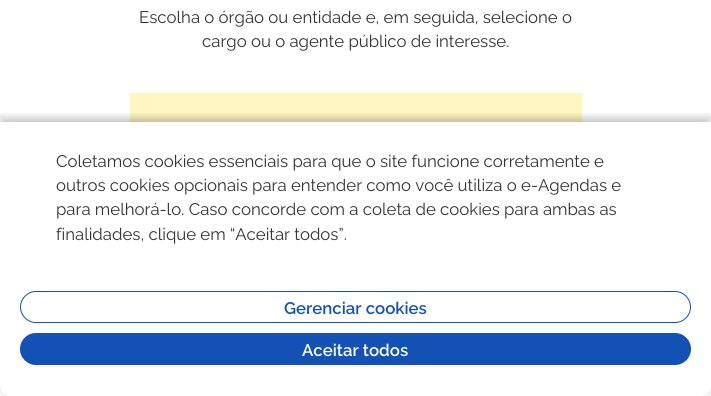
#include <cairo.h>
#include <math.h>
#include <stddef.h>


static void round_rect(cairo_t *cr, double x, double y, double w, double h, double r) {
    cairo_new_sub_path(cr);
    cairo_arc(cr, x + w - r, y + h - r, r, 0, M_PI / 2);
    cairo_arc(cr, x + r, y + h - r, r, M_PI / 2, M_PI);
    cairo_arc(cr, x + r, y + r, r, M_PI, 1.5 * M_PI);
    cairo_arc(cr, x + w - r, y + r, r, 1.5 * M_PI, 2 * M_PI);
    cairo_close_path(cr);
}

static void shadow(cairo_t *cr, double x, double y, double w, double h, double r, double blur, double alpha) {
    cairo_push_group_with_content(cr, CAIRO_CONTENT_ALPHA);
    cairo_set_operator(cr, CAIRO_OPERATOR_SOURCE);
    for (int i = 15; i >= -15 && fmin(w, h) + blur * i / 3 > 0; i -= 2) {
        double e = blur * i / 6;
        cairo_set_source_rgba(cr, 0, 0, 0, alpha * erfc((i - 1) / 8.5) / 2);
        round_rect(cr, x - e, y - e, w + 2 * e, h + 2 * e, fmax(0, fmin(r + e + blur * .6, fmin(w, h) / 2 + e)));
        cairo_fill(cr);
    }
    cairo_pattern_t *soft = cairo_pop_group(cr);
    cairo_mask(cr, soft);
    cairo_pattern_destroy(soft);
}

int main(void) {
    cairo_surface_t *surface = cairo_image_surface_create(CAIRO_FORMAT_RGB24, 711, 396);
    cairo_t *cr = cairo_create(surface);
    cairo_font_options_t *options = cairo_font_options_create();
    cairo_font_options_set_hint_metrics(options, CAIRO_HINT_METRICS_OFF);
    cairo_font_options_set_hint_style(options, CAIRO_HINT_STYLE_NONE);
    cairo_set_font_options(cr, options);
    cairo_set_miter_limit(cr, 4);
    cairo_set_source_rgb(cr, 1, 1, 1);
    cairo_paint(cr);
    cairo_select_font_face(cr, "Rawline", CAIRO_FONT_SLANT_NORMAL, CAIRO_FONT_WEIGHT_NORMAL);
    cairo_set_font_size(cr, 16.8);
    cairo_set_source_rgb(cr, 0.2, 0.2, 0.2);
    cairo_move_to(cr, 139, 23);
    cairo_show_text(cr, "Escolha o órgão ou entidade e, em seguida, selecione o");
    cairo_move_to(cr, 202, 47);
    cairo_show_text(cr, "cargo ou o agente público de interesse.");
    cairo_set_source_rgb(cr, 1, 0.961, 0.761);
    cairo_rectangle(cr, 130, 93, 452, 29);
    cairo_fill(cr);
    cairo_save(cr);
    cairo_rectangle(cr, 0, 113, 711, 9);
    cairo_clip(cr);
    cairo_set_source_rgb(cr, 0, 0, 0);
    shadow(cr, 0, 116, 711, 274, 0, 3, 0.16);
    cairo_restore(cr);
    cairo_set_source_rgb(cr, 0, 0, 0);
    shadow(cr, 0, 123, 711, 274, 10, 3, 0.16);
    cairo_set_source_rgb(cr, 1, 1, 1);
    round_rect(cr, 0, 122, 711, 274, 10);
    cairo_fill(cr);
    cairo_set_source_rgba(cr, 1, 1, 1, 0.97);
    cairo_rectangle(cr, 0, 122, 711, 9);
    cairo_fill(cr);
    cairo_set_source_rgb(cr, 0.2, 0.2, 0.2);
    cairo_move_to(cr, 56, 167);
    cairo_show_text(cr, "Coletamos cookies essenciais para que o site funcione corretamente e");
    cairo_move_to(cr, 56, 191);
    cairo_show_text(cr, "outros cookies opcionais para entender como você utiliza o e-Agendas e");
    cairo_move_to(cr, 56, 215);
    cairo_show_text(cr, "para melhorá-lo. Caso concorde com a coleta de cookies para ambas as");
    cairo_move_to(cr, 56, 240);
    cairo_show_text(cr, "finalidades, clique em “Aceitar todos”.");
    round_rect(cr, 20.5, 291.5, 670, 31, 15.5);
    cairo_set_source_rgb(cr, 0.075, 0.318, 0.706);
    cairo_set_line_width(cr, 1);
    cairo_stroke(cr);
    cairo_select_font_face(cr, "Rawline SemiBold", CAIRO_FONT_SLANT_NORMAL, CAIRO_FONT_WEIGHT_NORMAL);
    cairo_move_to(cr, 284, 314);
    cairo_show_text(cr, "Gerenciar cookies");
    round_rect(cr, 20, 333, 671, 32, 16);
    cairo_fill(cr);
    cairo_set_source_rgb(cr, 1, 1, 1);
    cairo_move_to(cr, 302, 356);
    cairo_show_text(cr, "Aceitar todos");
    cairo_surface_write_to_png(surface, "page.png");
    cairo_font_options_destroy(options);
    cairo_destroy(cr);
    cairo_surface_destroy(surface);
    return 0;
}
